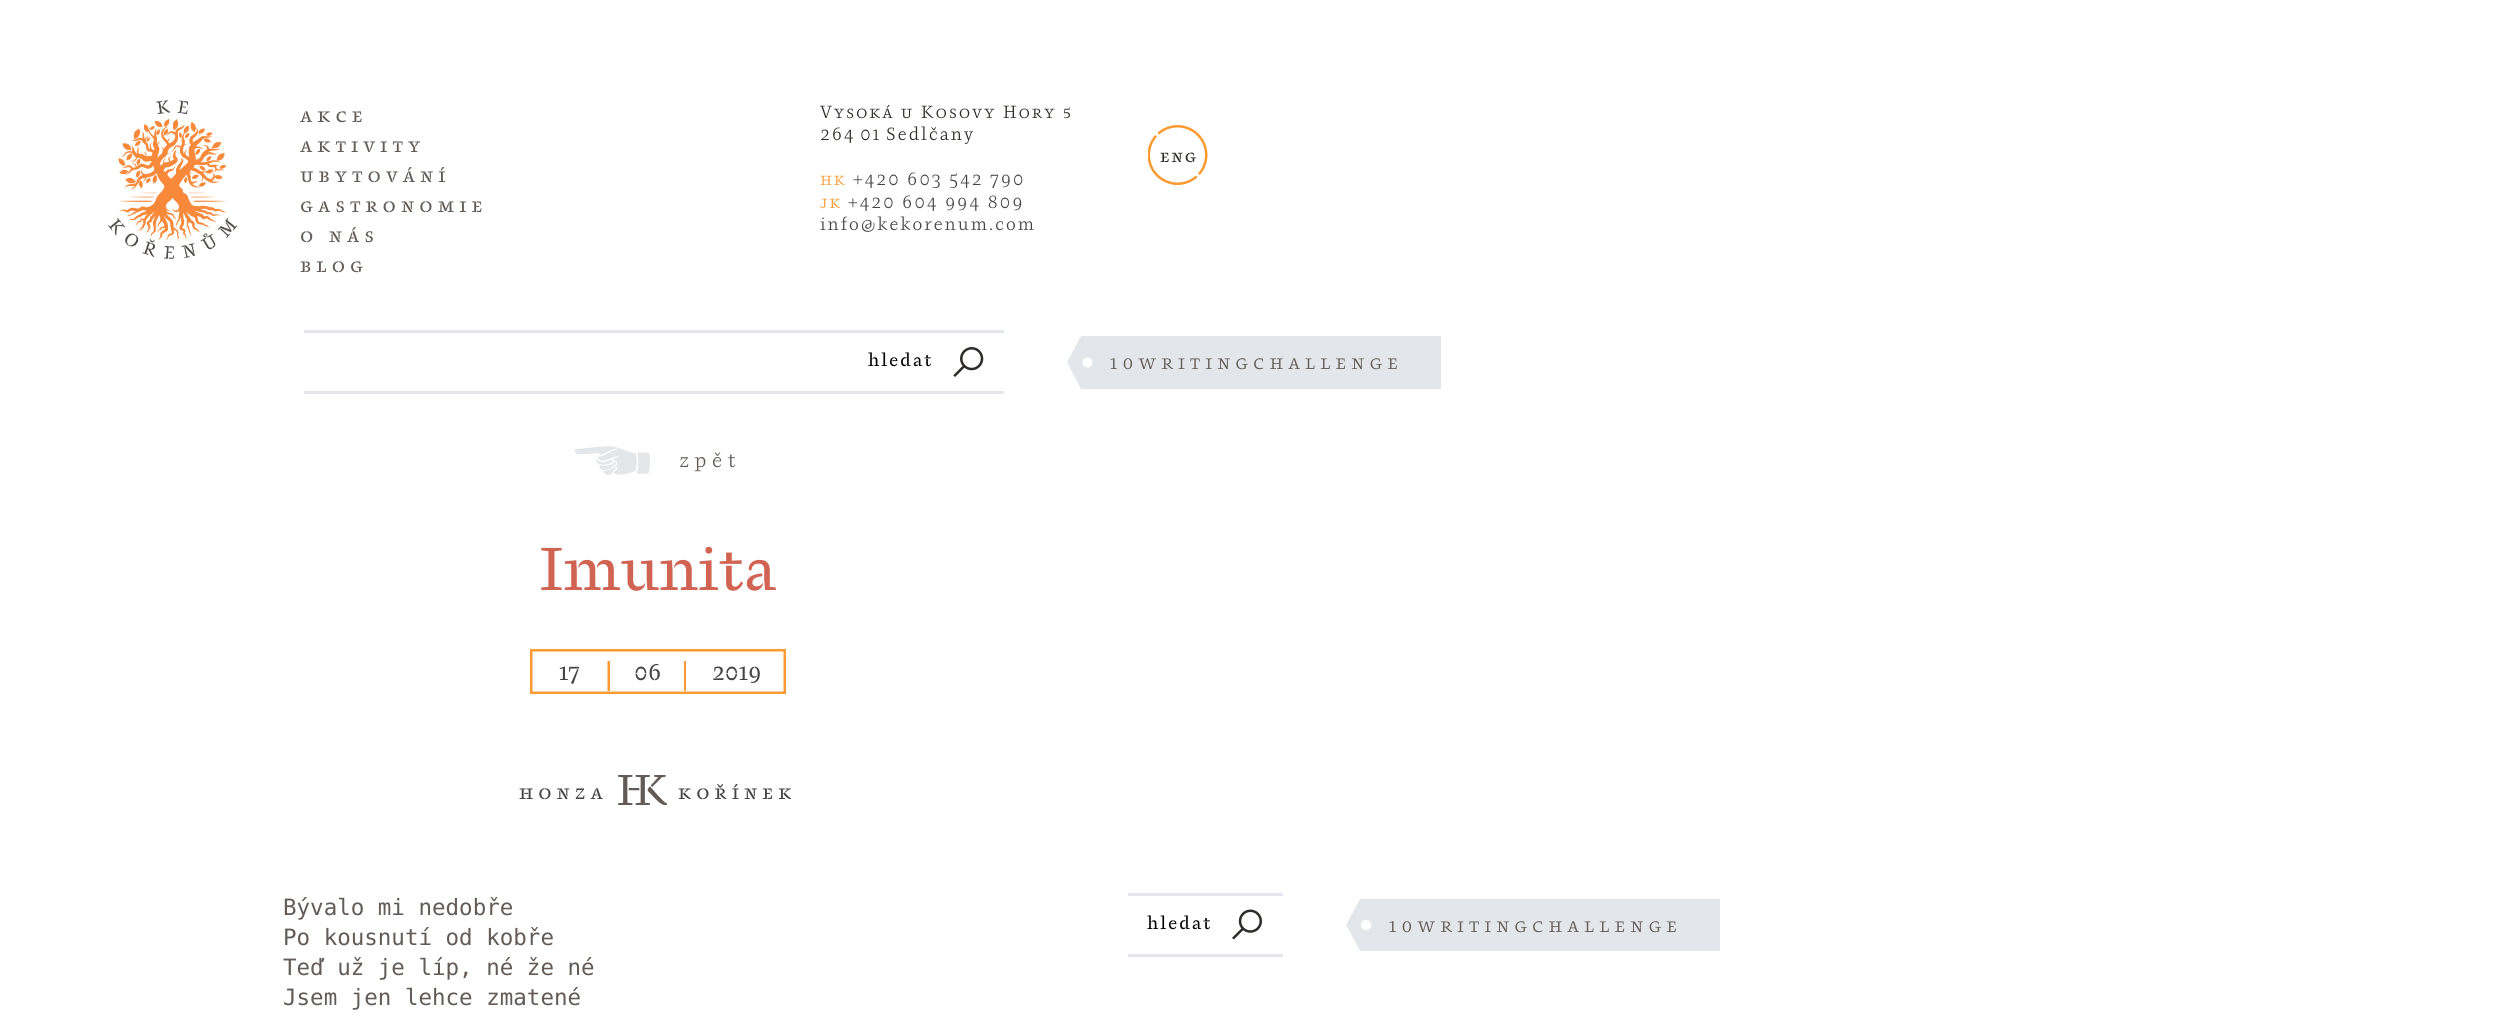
#include <cairo.h>
#include <math.h>
#include <stddef.h>


static void spaced_text(cairo_t *cr, double x, double y, const char *s, double letter, double word) {
    cairo_move_to(cr, x, y);
    while (*s) {
        char ch[5] = {0};
        int n = 0;
        do ch[n++] = *s++; while ((*s & 0xC0) == 0x80);
        cairo_show_text(cr, ch);
        cairo_rel_move_to(cr, letter + word * (*ch == ' '), 0);
    }
}

static void picture(cairo_t *cr, const char *path, double x, double y, double w, double h) {
    cairo_surface_t *image = cairo_image_surface_create_from_png(path);
    cairo_save(cr);
    cairo_set_source_surface(cr, image, x, y);
    cairo_rectangle(cr, x, y, w, h);
    cairo_fill(cr);
    cairo_restore(cr);
    cairo_surface_destroy(image);
}

int main(void) {
    cairo_surface_t *surface = cairo_image_surface_create(CAIRO_FORMAT_RGB24, 2515, 1016);
    cairo_t *cr = cairo_create(surface);
    cairo_font_options_t *options = cairo_font_options_create();
    cairo_font_options_set_hint_metrics(options, CAIRO_HINT_METRICS_OFF);
    cairo_font_options_set_hint_style(options, CAIRO_HINT_STYLE_NONE);
    cairo_set_font_options(cr, options);
    cairo_set_miter_limit(cr, 4);
    cairo_set_source_rgb(cr, 1, 1, 1);
    cairo_paint(cr);
    picture(cr, "img1.png", 108, 100, 130, 159);
    cairo_select_font_face(cr, "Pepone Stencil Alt", CAIRO_FONT_SLANT_NORMAL, CAIRO_FONT_WEIGHT_NORMAL);
    cairo_set_font_size(cr, 20);
    cairo_set_source_rgb(cr, 0.384, 0.357, 0.337);
    spaced_text(cr, 300, 122, "akce", 5, 0);
    spaced_text(cr, 300, 152, "aktivity", 5, 0);
    spaced_text(cr, 300, 182, "ubytování", 5, 0);
    spaced_text(cr, 300, 212, "gastronomie", 5, 0);
    spaced_text(cr, 300, 242, "o nás", 5, 0);
    spaced_text(cr, 300, 272, "blog", 5, 0);
    cairo_select_font_face(cr, "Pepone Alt", CAIRO_FONT_SLANT_NORMAL, CAIRO_FONT_WEIGHT_NORMAL);
    cairo_set_font_size(cr, 17.5);
    cairo_set_source_rgb(cr, 0.18, 0.169, 0.157);
    spaced_text(cr, 820, 118, "Vysoká u Kosovy Hory 5", 1.75, 0);
    cairo_select_font_face(cr, "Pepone", CAIRO_FONT_SLANT_NORMAL, CAIRO_FONT_WEIGHT_NORMAL);
    spaced_text(cr, 820, 140, "264", 1.75, 0);
    spaced_text(cr, 860, 140, "01", 1.75, 0);
    spaced_text(cr, 886, 140, "Sedlčany", 1.75, 0);
    cairo_select_font_face(cr, "Pepone Alt", CAIRO_FONT_SLANT_NORMAL, CAIRO_FONT_WEIGHT_NORMAL);
    cairo_set_source_rgb(cr, 0.976, 0.604, 0.196);
    spaced_text(cr, 820, 185, "hk", 1.75, 0);
    cairo_select_font_face(cr, "Pepone", CAIRO_FONT_SLANT_NORMAL, CAIRO_FONT_WEIGHT_NORMAL);
    cairo_set_source_rgb(cr, 0.267, 0.267, 0.267);
    spaced_text(cr, 853, 185, "+420 603 542 790", 1.75, 0);
    cairo_select_font_face(cr, "Pepone Alt", CAIRO_FONT_SLANT_NORMAL, CAIRO_FONT_WEIGHT_NORMAL);
    cairo_set_source_rgb(cr, 0.976, 0.604, 0.196);
    spaced_text(cr, 820, 208, "jk", 1.75, 0);
    cairo_select_font_face(cr, "Pepone", CAIRO_FONT_SLANT_NORMAL, CAIRO_FONT_WEIGHT_NORMAL);
    cairo_set_source_rgb(cr, 0.267, 0.267, 0.267);
    spaced_text(cr, 848, 208, "+420 604 994 809", 1.75, 0);
    spaced_text(cr, 820, 230, "info@kekorenum.com", 1.75, 0);
    picture(cr, "img2.png", 1148, 125, 60, 60);
    cairo_select_font_face(cr, "Pepone Stencil Alt", CAIRO_FONT_SLANT_NORMAL, CAIRO_FONT_WEIGHT_NORMAL);
    cairo_set_source_rgb(cr, 0.18, 0.169, 0.157);
    spaced_text(cr, 1160, 162, "eng", 1.75, 0);
    cairo_set_source_rgb(cr, 0.89, 0.906, 0.918);
    cairo_rectangle(cr, 304, 330, 700, 3);
    cairo_fill(cr);
    cairo_rectangle(cr, 304, 391, 700, 3);
    cairo_fill(cr);
    cairo_select_font_face(cr, "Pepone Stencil", CAIRO_FONT_SLANT_NORMAL, CAIRO_FONT_WEIGHT_NORMAL);
    cairo_set_source_rgb(cr, 0, 0, 0);
    spaced_text(cr, 868, 366, "hledat", 1.75, 0);
    picture(cr, "img3.png", 953, 347, 31, 30);
    cairo_set_source_rgb(cr, 0.89, 0.906, 0.918);
    cairo_new_path(cr);
    cairo_move_to(cr, 1081, 389);
    cairo_line_to(cr, 1280, 389);
    cairo_line_to(cr, 1280, 336);
    cairo_line_to(cr, 1081, 336);
    cairo_line_to(cr, 1067, 362);
    cairo_close_path(cr);
    cairo_fill(cr);
    cairo_set_source_rgb(cr, 1, 1, 1);
    cairo_new_path(cr);
    cairo_move_to(cr, 1087.5, 367.5);
    cairo_curve_to(cr, 1081, 367.5, 1081, 357.5, 1087.5, 357.5);
    cairo_curve_to(cr, 1094, 357.5, 1094, 367.5, 1087.5, 367.5);
    cairo_close_path(cr);
    cairo_fill(cr);
    cairo_set_source_rgb(cr, 0.89, 0.906, 0.918);
    cairo_rectangle(cr, 1280, 336, 161, 53);
    cairo_fill(cr);
    cairo_select_font_face(cr, "Pepone Alt", CAIRO_FONT_SLANT_NORMAL, CAIRO_FONT_WEIGHT_NORMAL);
    cairo_set_font_size(cr, 20);
    cairo_set_source_rgb(cr, 0.384, 0.357, 0.337);
    spaced_text(cr, 1110, 369, "10writingchallenge", 5, 0);
    picture(cr, "img4.png", 575, 446, 75, 29);
    cairo_select_font_face(cr, "Pepone", CAIRO_FONT_SLANT_NORMAL, CAIRO_FONT_WEIGHT_NORMAL);
    spaced_text(cr, 679, 467, "zpět", 5, 0);
    cairo_select_font_face(cr, "Pepone Stencil", CAIRO_FONT_SLANT_NORMAL, CAIRO_FONT_WEIGHT_NORMAL);
    cairo_set_font_size(cr, 60);
    cairo_set_source_rgb(cr, 0.816, 0.388, 0.318);
    spaced_text(cr, 539, 590, "Imunita", -0.5, 0);
    cairo_save(cr);
    cairo_new_path(cr);
    cairo_move_to(cr, 607.5, 691);
    cairo_line_to(cr, 607.5, 661);
    cairo_line_to(cr, 610, 661);
    cairo_line_to(cr, 610, 691);
    cairo_close_path(cr);
    cairo_clip(cr);
    cairo_new_path(cr);
    cairo_move_to(cr, 607.5, 691);
    cairo_line_to(cr, 607.5, 661);
    cairo_line_to(cr, 610, 661);
    cairo_line_to(cr, 610, 691);
    cairo_close_path(cr);
    cairo_set_source_rgb(cr, 0.976, 0.604, 0.196);
    cairo_set_line_width(cr, 2.5);
    cairo_set_line_cap(cr, CAIRO_LINE_CAP_ROUND);
    cairo_set_line_join(cr, CAIRO_LINE_JOIN_ROUND);
    cairo_stroke(cr);
    cairo_restore(cr);
    cairo_save(cr);
    cairo_new_path(cr);
    cairo_move_to(cr, 684, 691);
    cairo_line_to(cr, 684, 661);
    cairo_line_to(cr, 686, 661);
    cairo_line_to(cr, 686, 691);
    cairo_close_path(cr);
    cairo_clip(cr);
    cairo_new_path(cr);
    cairo_move_to(cr, 684, 691);
    cairo_line_to(cr, 684, 661);
    cairo_line_to(cr, 686, 661);
    cairo_line_to(cr, 686, 691);
    cairo_close_path(cr);
    cairo_set_source_rgb(cr, 0.976, 0.604, 0.196);
    cairo_set_line_width(cr, 2.5);
    cairo_set_line_cap(cr, CAIRO_LINE_CAP_ROUND);
    cairo_set_line_join(cr, CAIRO_LINE_JOIN_ROUND);
    cairo_stroke(cr);
    cairo_restore(cr);
    cairo_save(cr);
    cairo_rectangle(cr, 530, 649, 256, 45);
    cairo_clip(cr);
    cairo_new_path(cr);
    cairo_move_to(cr, 530, 694);
    cairo_line_to(cr, 530, 649);
    cairo_line_to(cr, 786, 649);
    cairo_line_to(cr, 786, 694);
    cairo_close_path(cr);
    cairo_clip(cr);
    cairo_new_path(cr);
    cairo_move_to(cr, 530, 694);
    cairo_line_to(cr, 530, 649);
    cairo_line_to(cr, 786, 649);
    cairo_line_to(cr, 786, 694);
    cairo_close_path(cr);
    cairo_set_source_rgb(cr, 0.976, 0.604, 0.196);
    cairo_set_line_width(cr, 5);
    cairo_set_line_cap(cr, CAIRO_LINE_CAP_ROUND);
    cairo_set_line_join(cr, CAIRO_LINE_JOIN_ROUND);
    cairo_stroke(cr);
    cairo_restore(cr);
    cairo_set_font_size(cr, 22.5);
    cairo_set_source_rgb(cr, 0.267, 0.267, 0.267);
    cairo_move_to(cr, 559, 680);
    cairo_show_text(cr, "17");
    cairo_move_to(cr, 634, 680);
    cairo_show_text(cr, "06");
    cairo_move_to(cr, 712, 680);
    cairo_show_text(cr, "2019");
    cairo_select_font_face(cr, "Pepone Stencil Alt", CAIRO_FONT_SLANT_NORMAL, CAIRO_FONT_WEIGHT_NORMAL);
    cairo_set_font_size(cr, 20);
    spaced_text(cr, 519, 799, "honza", 5, 0);
    picture(cr, "img5.png", 618, 775, 49, 30);
    spaced_text(cr, 678, 799, "kořínek", 5, 0);
    cairo_select_font_face(cr, "DejaVu Sans Mono", CAIRO_FONT_SLANT_NORMAL, CAIRO_FONT_WEIGHT_NORMAL);
    cairo_set_font_size(cr, 22.5);
    cairo_set_source_rgb(cr, 0.384, 0.357, 0.337);
    cairo_move_to(cr, 283, 915);
    cairo_show_text(cr, "Bývalo mi nedobře");
    cairo_move_to(cr, 283, 945);
    cairo_show_text(cr, "Po kousnutí od kobře");
    cairo_move_to(cr, 283, 975);
    cairo_show_text(cr, "Teď už je líp, né že né");
    cairo_move_to(cr, 283, 1005);
    cairo_show_text(cr, "Jsem jen lehce zmatené");
    cairo_set_source_rgb(cr, 0.89, 0.906, 0.918);
    cairo_rectangle(cr, 1128, 893, 155, 3);
    cairo_fill(cr);
    cairo_rectangle(cr, 1128, 954, 155, 3);
    cairo_fill(cr);
    cairo_select_font_face(cr, "Pepone Stencil", CAIRO_FONT_SLANT_NORMAL, CAIRO_FONT_WEIGHT_NORMAL);
    cairo_set_font_size(cr, 17.5);
    cairo_set_source_rgb(cr, 0, 0, 0);
    spaced_text(cr, 1147, 929, "hledat", 1.75, 0);
    picture(cr, "img6.png", 1232, 909, 30, 31);
    cairo_set_source_rgb(cr, 0.89, 0.906, 0.918);
    cairo_new_path(cr);
    cairo_move_to(cr, 1360, 951);
    cairo_line_to(cr, 1559, 951);
    cairo_line_to(cr, 1559, 899);
    cairo_line_to(cr, 1360, 899);
    cairo_line_to(cr, 1346, 925);
    cairo_close_path(cr);
    cairo_fill(cr);
    cairo_set_source_rgb(cr, 1, 1, 1);
    cairo_new_path(cr);
    cairo_move_to(cr, 1366, 930);
    cairo_curve_to(cr, 1359.5, 930, 1359.5, 920, 1366, 920);
    cairo_curve_to(cr, 1373, 920, 1373, 930, 1366, 930);
    cairo_close_path(cr);
    cairo_fill(cr);
    cairo_set_source_rgb(cr, 0.89, 0.906, 0.918);
    cairo_rectangle(cr, 1559, 899, 161, 52);
    cairo_fill(cr);
    cairo_select_font_face(cr, "Pepone Alt", CAIRO_FONT_SLANT_NORMAL, CAIRO_FONT_WEIGHT_NORMAL);
    cairo_set_font_size(cr, 20);
    cairo_set_source_rgb(cr, 0.384, 0.357, 0.337);
    spaced_text(cr, 1389, 932, "10writingchallenge", 5, 0);
    cairo_surface_write_to_png(surface, "page.png");
    cairo_font_options_destroy(options);
    cairo_destroy(cr);
    cairo_surface_destroy(surface);
    return 0;
}
